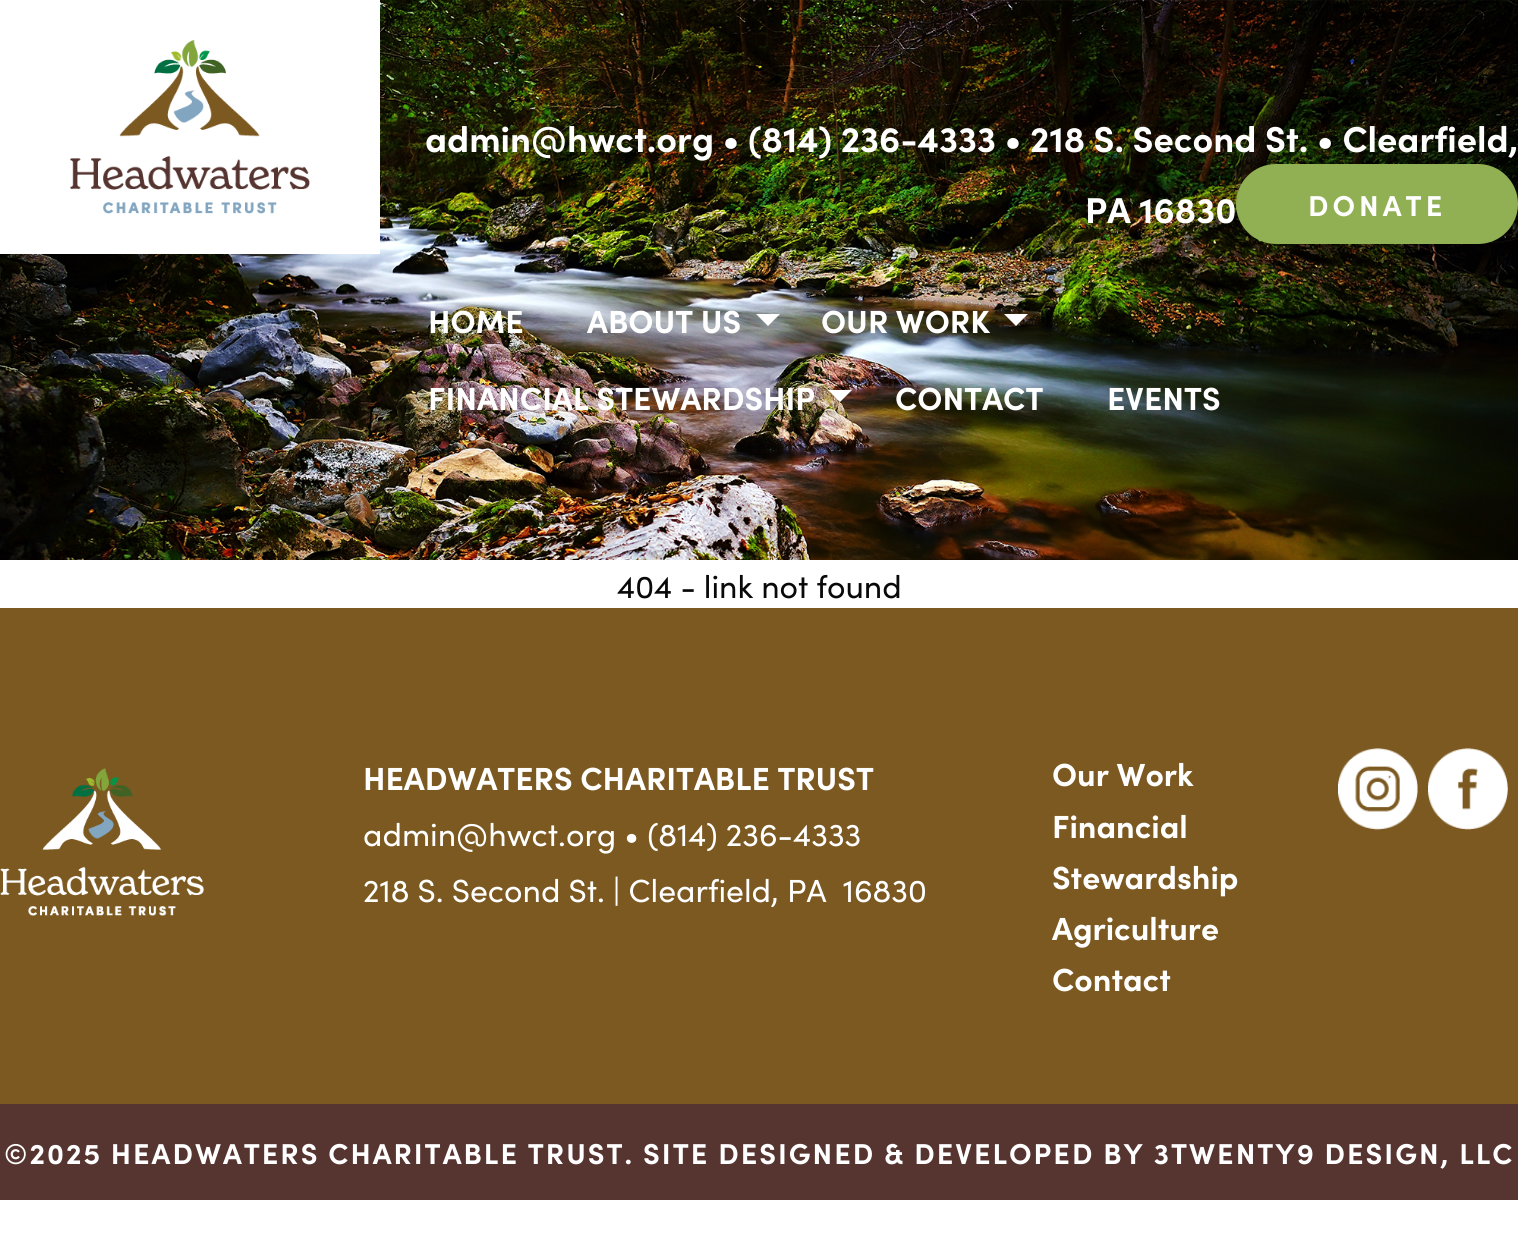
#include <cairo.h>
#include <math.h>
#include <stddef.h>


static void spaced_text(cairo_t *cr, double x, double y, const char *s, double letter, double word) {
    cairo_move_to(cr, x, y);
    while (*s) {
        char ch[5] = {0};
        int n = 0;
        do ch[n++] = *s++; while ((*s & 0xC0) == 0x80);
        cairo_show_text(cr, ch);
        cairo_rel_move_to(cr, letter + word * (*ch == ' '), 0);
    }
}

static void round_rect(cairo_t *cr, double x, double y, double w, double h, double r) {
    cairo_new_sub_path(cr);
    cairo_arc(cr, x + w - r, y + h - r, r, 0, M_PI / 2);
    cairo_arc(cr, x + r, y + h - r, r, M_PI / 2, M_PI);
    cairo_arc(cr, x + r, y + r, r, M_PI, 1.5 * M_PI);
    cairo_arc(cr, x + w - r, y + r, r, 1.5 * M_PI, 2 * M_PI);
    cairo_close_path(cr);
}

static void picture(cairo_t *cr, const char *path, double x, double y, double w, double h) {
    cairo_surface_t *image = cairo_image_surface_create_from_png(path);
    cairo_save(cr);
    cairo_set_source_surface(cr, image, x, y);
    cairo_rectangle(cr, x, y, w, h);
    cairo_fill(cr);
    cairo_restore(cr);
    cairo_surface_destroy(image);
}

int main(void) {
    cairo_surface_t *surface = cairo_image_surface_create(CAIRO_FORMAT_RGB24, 1518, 1259);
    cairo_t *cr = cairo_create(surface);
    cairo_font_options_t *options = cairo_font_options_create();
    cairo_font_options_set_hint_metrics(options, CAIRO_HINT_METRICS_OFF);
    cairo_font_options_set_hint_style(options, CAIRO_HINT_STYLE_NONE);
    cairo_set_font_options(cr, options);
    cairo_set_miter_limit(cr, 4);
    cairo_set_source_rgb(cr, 1, 1, 1);
    cairo_paint(cr);
    picture(cr, "img1.png", 0, 0, 1518, 560);
    cairo_set_source_rgb(cr, 1, 1, 1);
    cairo_rectangle(cr, 0, 0, 380, 254);
    cairo_fill(cr);
    picture(cr, "img2.png", 70, 40, 240, 174);
    cairo_select_font_face(cr, "Sofia", CAIRO_FONT_SLANT_NORMAL, CAIRO_FONT_WEIGHT_BOLD);
    cairo_set_font_size(cr, 36);
    cairo_move_to(cr, 425, 152);
    cairo_show_text(cr, "admin@hwct.org • (814) 236-4333 • 218 S. Second St. • Clearfield,");
    cairo_move_to(cr, 1085, 223);
    cairo_show_text(cr, "PA 16830");
    cairo_set_source_rgb(cr, 0.569, 0.69, 0.325);
    round_rect(cr, 1236, 164, 282, 80, 40);
    cairo_fill(cr);
    cairo_set_font_size(cr, 28.8);
    cairo_set_source_rgb(cr, 1, 1, 1);
    spaced_text(cr, 1308, 216, "DONATE", 4, 0);
    cairo_set_font_size(cr, 32);
    cairo_move_to(cr, 428, 333);
    cairo_show_text(cr, "HOME");
    cairo_move_to(cr, 587, 333);
    cairo_show_text(cr, "ABOUT US");
    cairo_new_path(cr);
    cairo_move_to(cr, 756, 314);
    cairo_line_to(cr, 780, 314);
    cairo_line_to(cr, 768, 326);
    cairo_close_path(cr);
    cairo_fill(cr);
    cairo_move_to(cr, 821, 333);
    cairo_show_text(cr, "OUR WORK");
    cairo_new_path(cr);
    cairo_move_to(cr, 1004, 314);
    cairo_line_to(cr, 1028, 314);
    cairo_line_to(cr, 1016, 326);
    cairo_close_path(cr);
    cairo_fill(cr);
    cairo_move_to(cr, 428, 410);
    cairo_show_text(cr, "FINANCIAL STEWARDSHIP");
    cairo_new_path(cr);
    cairo_move_to(cr, 828, 390);
    cairo_line_to(cr, 852, 390);
    cairo_line_to(cr, 840, 402);
    cairo_close_path(cr);
    cairo_fill(cr);
    cairo_move_to(cr, 895, 410);
    cairo_show_text(cr, "CONTACT");
    cairo_move_to(cr, 1107, 410);
    cairo_show_text(cr, "EVENTS");
    cairo_select_font_face(cr, "Sofia", CAIRO_FONT_SLANT_NORMAL, CAIRO_FONT_WEIGHT_NORMAL);
    cairo_set_source_rgb(cr, 0.039, 0.039, 0.039);
    cairo_move_to(cr, 617, 598);
    cairo_show_text(cr, "404 - link not found");
    cairo_set_source_rgb(cr, 0.486, 0.349, 0.129);
    cairo_rectangle(cr, 0, 608, 1518, 496);
    cairo_fill(cr);
    picture(cr, "img3.png", 0, 768, 204, 148);
    cairo_select_font_face(cr, "Sofia", CAIRO_FONT_SLANT_NORMAL, CAIRO_FONT_WEIGHT_BOLD);
    cairo_set_source_rgb(cr, 1, 1, 1);
    cairo_move_to(cr, 363, 790);
    cairo_show_text(cr, "HEADWATERS CHARITABLE TRUST");
    cairo_select_font_face(cr, "Sofia", CAIRO_FONT_SLANT_NORMAL, CAIRO_FONT_WEIGHT_NORMAL);
    cairo_move_to(cr, 363, 846);
    cairo_show_text(cr, "admin@hwct.org • (814) 236-4333");
    cairo_move_to(cr, 363, 902);
    cairo_show_text(cr, "218 S. Second St. | Clearfield, PA  16830");
    cairo_select_font_face(cr, "Sofia", CAIRO_FONT_SLANT_NORMAL, CAIRO_FONT_WEIGHT_BOLD);
    cairo_move_to(cr, 1052, 786);
    cairo_show_text(cr, "Our Work");
    cairo_move_to(cr, 1052, 838);
    cairo_show_text(cr, "Financial");
    cairo_move_to(cr, 1052, 889);
    cairo_show_text(cr, "Stewardship");
    cairo_move_to(cr, 1052, 940);
    cairo_show_text(cr, "Agriculture");
    cairo_move_to(cr, 1052, 991);
    cairo_show_text(cr, "Contact");
    picture(cr, "img4.png", 1338, 748, 80, 82);
    picture(cr, "img5.png", 1428, 748, 80, 82);
    cairo_set_source_rgb(cr, 0.337, 0.208, 0.192);
    cairo_rectangle(cr, 0, 1104, 1518, 96);
    cairo_fill(cr);
    cairo_set_font_size(cr, 28.8);
    cairo_set_source_rgb(cr, 1, 1, 1);
    spaced_text(cr, 4, 1164, "©2025 HEADWATERS CHARITABLE TRUST. SITE DESIGNED & DEVELOPED BY 3TWENTY9 DESIGN, LLC", 2, 0);
    cairo_surface_write_to_png(surface, "page.png");
    cairo_font_options_destroy(options);
    cairo_destroy(cr);
    cairo_surface_destroy(surface);
    return 0;
}
